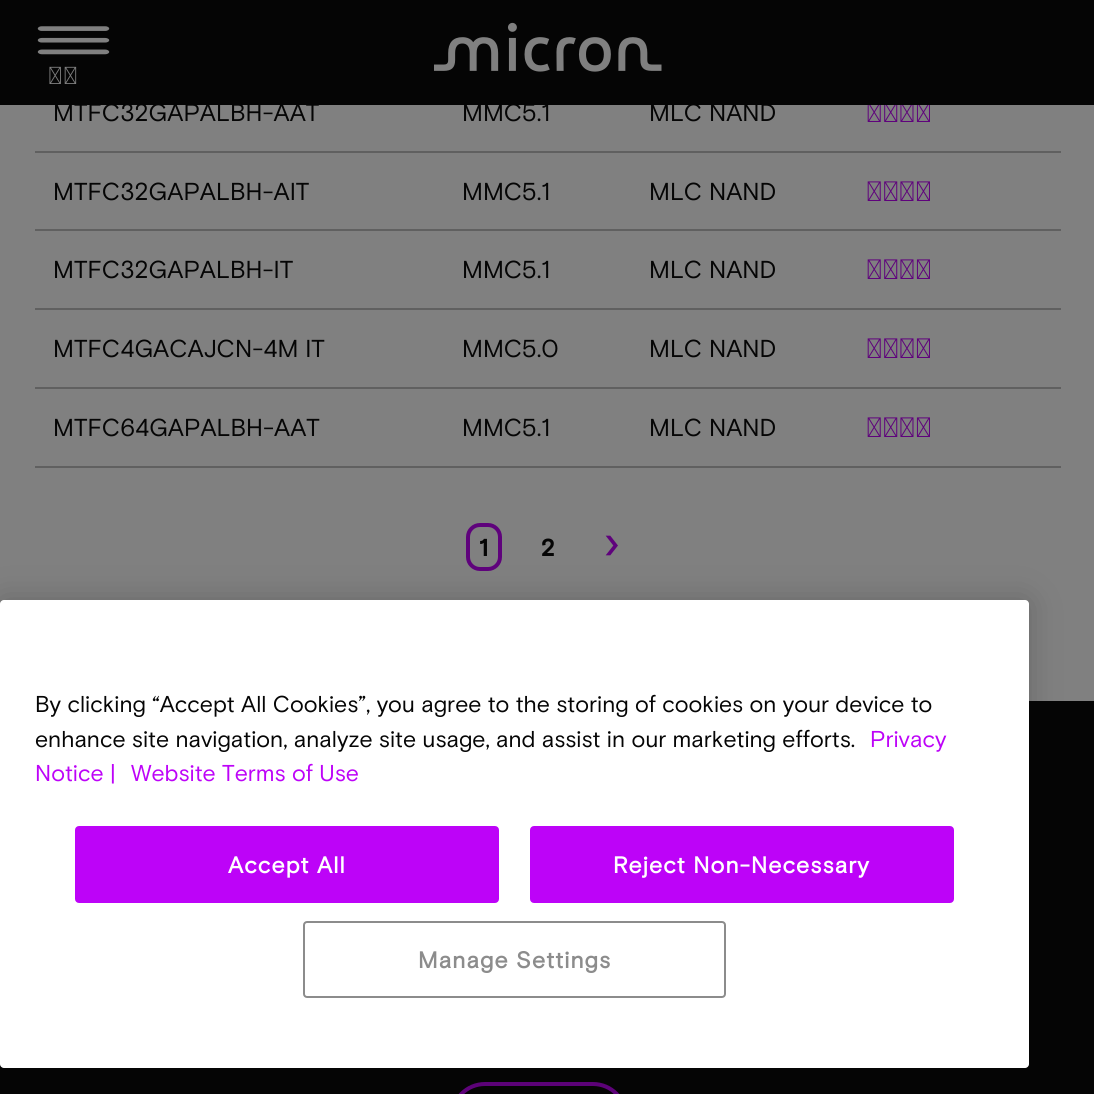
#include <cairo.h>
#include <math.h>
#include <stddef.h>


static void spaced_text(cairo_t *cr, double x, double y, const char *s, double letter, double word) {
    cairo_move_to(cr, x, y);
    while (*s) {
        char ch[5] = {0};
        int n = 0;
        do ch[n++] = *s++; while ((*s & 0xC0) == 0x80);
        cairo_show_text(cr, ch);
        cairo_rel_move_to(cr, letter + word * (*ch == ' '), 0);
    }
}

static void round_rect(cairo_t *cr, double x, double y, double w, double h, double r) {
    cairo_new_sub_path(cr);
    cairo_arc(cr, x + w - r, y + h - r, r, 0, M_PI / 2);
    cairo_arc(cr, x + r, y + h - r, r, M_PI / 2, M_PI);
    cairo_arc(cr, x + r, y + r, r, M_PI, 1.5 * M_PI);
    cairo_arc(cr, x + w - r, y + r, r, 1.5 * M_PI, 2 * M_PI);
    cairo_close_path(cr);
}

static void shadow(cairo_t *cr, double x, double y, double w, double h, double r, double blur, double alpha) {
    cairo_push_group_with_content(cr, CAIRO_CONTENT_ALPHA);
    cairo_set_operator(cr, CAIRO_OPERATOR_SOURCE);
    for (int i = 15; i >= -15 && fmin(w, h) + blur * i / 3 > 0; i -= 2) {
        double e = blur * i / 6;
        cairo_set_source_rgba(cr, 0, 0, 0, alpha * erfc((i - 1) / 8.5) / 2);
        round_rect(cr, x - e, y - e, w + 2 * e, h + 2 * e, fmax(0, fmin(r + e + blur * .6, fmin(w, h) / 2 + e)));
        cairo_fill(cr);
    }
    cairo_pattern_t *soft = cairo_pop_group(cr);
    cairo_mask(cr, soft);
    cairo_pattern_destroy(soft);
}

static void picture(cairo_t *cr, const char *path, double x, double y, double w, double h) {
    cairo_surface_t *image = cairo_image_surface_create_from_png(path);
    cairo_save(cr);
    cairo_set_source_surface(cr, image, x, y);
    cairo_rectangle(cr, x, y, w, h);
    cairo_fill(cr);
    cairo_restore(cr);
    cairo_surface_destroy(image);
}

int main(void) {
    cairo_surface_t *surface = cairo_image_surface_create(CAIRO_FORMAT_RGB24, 1094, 1094);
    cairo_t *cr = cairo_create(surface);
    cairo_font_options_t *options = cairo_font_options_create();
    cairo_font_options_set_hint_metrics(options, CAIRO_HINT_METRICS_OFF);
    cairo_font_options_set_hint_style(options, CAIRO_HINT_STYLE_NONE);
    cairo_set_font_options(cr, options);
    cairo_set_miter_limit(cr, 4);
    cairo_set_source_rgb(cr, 0.502, 0.502, 0.502);
    cairo_paint(cr);
    cairo_select_font_face(cr, "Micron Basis", CAIRO_FONT_SLANT_NORMAL, CAIRO_FONT_WEIGHT_BOLD);
    cairo_set_font_size(cr, 28);
    cairo_set_source_rgb(cr, 0.373, 0.008, 0.486);
    cairo_move_to(cr, 866, 122);
    cairo_show_text(cr, "購買地點");
    cairo_set_source_rgb(cr, 0.02, 0.02, 0.02);
    cairo_rectangle(cr, 0, 0, 1094, 105);
    cairo_fill(cr);
    picture(cr, "img1.png", 434, 22, 228, 50);
    picture(cr, "img2.png", 37, 26, 73, 29);
    cairo_set_font_size(cr, 24.5);
    cairo_set_source_rgb(cr, 0.502, 0.502, 0.502);
    spaced_text(cr, 48, 84, "表單", 1, 0);
    cairo_select_font_face(cr, "Micron Basis", CAIRO_FONT_SLANT_NORMAL, CAIRO_FONT_WEIGHT_NORMAL);
    cairo_set_source_rgb(cr, 0.02, 0.02, 0.02);
    cairo_move_to(cr, 53, 121);
    cairo_show_text(cr, "MTFC32GAPALBH-AAT");
    cairo_move_to(cr, 462, 121);
    cairo_show_text(cr, "MMC5.1");
    cairo_move_to(cr, 649, 121);
    cairo_show_text(cr, "MLC NAND");
    cairo_set_source_rgb(cr, 0.376, 0.376, 0.376);
    cairo_rectangle(cr, 35, 151, 1026, 2);
    cairo_fill(cr);
    cairo_set_source_rgb(cr, 0.02, 0.02, 0.02);
    cairo_move_to(cr, 53, 200);
    cairo_show_text(cr, "MTFC32GAPALBH-AIT");
    cairo_move_to(cr, 462, 200);
    cairo_show_text(cr, "MMC5.1");
    cairo_move_to(cr, 649, 200);
    cairo_show_text(cr, "MLC NAND");
    cairo_select_font_face(cr, "Micron Basis", CAIRO_FONT_SLANT_NORMAL, CAIRO_FONT_WEIGHT_BOLD);
    cairo_set_font_size(cr, 28);
    cairo_set_source_rgb(cr, 0.373, 0.008, 0.486);
    cairo_move_to(cr, 866, 201);
    cairo_show_text(cr, "購買地點");
    cairo_set_source_rgb(cr, 0.376, 0.376, 0.376);
    cairo_rectangle(cr, 35, 229, 1026, 2);
    cairo_fill(cr);
    cairo_select_font_face(cr, "Micron Basis", CAIRO_FONT_SLANT_NORMAL, CAIRO_FONT_WEIGHT_NORMAL);
    cairo_set_font_size(cr, 24.5);
    cairo_set_source_rgb(cr, 0.02, 0.02, 0.02);
    cairo_move_to(cr, 53, 278);
    cairo_show_text(cr, "MTFC32GAPALBH-IT");
    cairo_move_to(cr, 462, 278);
    cairo_show_text(cr, "MMC5.1");
    cairo_move_to(cr, 649, 278);
    cairo_show_text(cr, "MLC NAND");
    cairo_select_font_face(cr, "Micron Basis", CAIRO_FONT_SLANT_NORMAL, CAIRO_FONT_WEIGHT_BOLD);
    cairo_set_font_size(cr, 28);
    cairo_set_source_rgb(cr, 0.373, 0.008, 0.486);
    cairo_move_to(cr, 866, 279);
    cairo_show_text(cr, "購買地點");
    cairo_set_source_rgb(cr, 0.376, 0.376, 0.376);
    cairo_rectangle(cr, 35, 308, 1026, 2);
    cairo_fill(cr);
    cairo_select_font_face(cr, "Micron Basis", CAIRO_FONT_SLANT_NORMAL, CAIRO_FONT_WEIGHT_NORMAL);
    cairo_set_font_size(cr, 24.5);
    cairo_set_source_rgb(cr, 0.02, 0.02, 0.02);
    cairo_move_to(cr, 53, 357);
    cairo_show_text(cr, "MTFC4GACAJCN-4M IT");
    cairo_move_to(cr, 462, 357);
    cairo_show_text(cr, "MMC5.0");
    cairo_move_to(cr, 649, 357);
    cairo_show_text(cr, "MLC NAND");
    cairo_select_font_face(cr, "Micron Basis", CAIRO_FONT_SLANT_NORMAL, CAIRO_FONT_WEIGHT_BOLD);
    cairo_set_font_size(cr, 28);
    cairo_set_source_rgb(cr, 0.373, 0.008, 0.486);
    cairo_move_to(cr, 866, 358);
    cairo_show_text(cr, "購買地點");
    cairo_set_source_rgb(cr, 0.376, 0.376, 0.376);
    cairo_rectangle(cr, 35, 387, 1026, 2);
    cairo_fill(cr);
    cairo_select_font_face(cr, "Micron Basis", CAIRO_FONT_SLANT_NORMAL, CAIRO_FONT_WEIGHT_NORMAL);
    cairo_set_font_size(cr, 24.5);
    cairo_set_source_rgb(cr, 0.02, 0.02, 0.02);
    cairo_move_to(cr, 53, 436);
    cairo_show_text(cr, "MTFC64GAPALBH-AAT");
    cairo_move_to(cr, 462, 436);
    cairo_show_text(cr, "MMC5.1");
    cairo_move_to(cr, 649, 436);
    cairo_show_text(cr, "MLC NAND");
    cairo_select_font_face(cr, "Micron Basis", CAIRO_FONT_SLANT_NORMAL, CAIRO_FONT_WEIGHT_BOLD);
    cairo_set_font_size(cr, 28);
    cairo_set_source_rgb(cr, 0.373, 0.008, 0.486);
    cairo_move_to(cr, 866, 437);
    cairo_show_text(cr, "購買地點");
    cairo_set_source_rgb(cr, 0.376, 0.376, 0.376);
    cairo_rectangle(cr, 35, 466, 1026, 2);
    cairo_fill(cr);
    round_rect(cr, 468, 525, 32, 44, 12);
    cairo_set_source_rgb(cr, 0.373, 0.008, 0.486);
    cairo_set_line_width(cr, 4);
    cairo_stroke(cr);
    cairo_set_font_size(cr, 24.5);
    cairo_set_source_rgb(cr, 0.02, 0.02, 0.02);
    cairo_move_to(cr, 479, 556);
    cairo_show_text(cr, "1");
    cairo_move_to(cr, 541, 556);
    cairo_show_text(cr, "2");
    cairo_select_font_face(cr, "Micron Basis", CAIRO_FONT_SLANT_NORMAL, CAIRO_FONT_WEIGHT_NORMAL);
    cairo_set_font_size(cr, 49);
    cairo_set_source_rgb(cr, 0.373, 0.008, 0.486);
    cairo_move_to(cr, 604, 559);
    cairo_show_text(cr, "›");
    cairo_set_source_rgb(cr, 0.02, 0.02, 0.02);
    cairo_rectangle(cr, 0, 701, 1094, 393);
    cairo_fill(cr);
    round_rect(cr, 452, 1084, 174, 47, 33);
    cairo_set_source_rgb(cr, 0.373, 0.008, 0.486);
    cairo_stroke(cr);
    cairo_set_source_rgb(cr, 0, 0, 0);
    shadow(cr, 0, 600, 1029, 468, 4, 16, 0.2);
    cairo_set_source_rgb(cr, 1, 1, 1);
    round_rect(cr, 0, 600, 1029, 468, 4);
    cairo_fill(cr);
    cairo_set_font_size(cr, 22.95);
    cairo_set_source_rgb(cr, 0.02, 0.02, 0.02);
    cairo_move_to(cr, 35, 712);
    cairo_show_text(cr, "By clicking “Accept All Cookies”, you agree to the storing of cookies on your device to");
    cairo_move_to(cr, 35, 747);
    cairo_show_text(cr, "enhance site navigation, analyze site usage, and assist in our marketing efforts.");
    cairo_set_source_rgb(cr, 0.741, 0.012, 0.969);
    cairo_move_to(cr, 870, 747);
    cairo_show_text(cr, "Privacy");
    cairo_move_to(cr, 35, 781);
    cairo_show_text(cr, "Notice |");
    cairo_move_to(cr, 131, 781);
    cairo_show_text(cr, "Website Terms of Use");
    round_rect(cr, 76, 827, 422, 75, 3);
    cairo_fill_preserve(cr);
    cairo_set_line_width(cr, 2);
    cairo_stroke(cr);
    cairo_select_font_face(cr, "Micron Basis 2", CAIRO_FONT_SLANT_NORMAL, CAIRO_FONT_WEIGHT_BOLD);
    cairo_set_source_rgb(cr, 1, 1, 1);
    spaced_text(cr, 228, 873, "Accept All", 1.1, 0);
    cairo_set_source_rgb(cr, 0.741, 0.012, 0.969);
    round_rect(cr, 531, 827, 422, 75, 3);
    cairo_fill_preserve(cr);
    cairo_stroke(cr);
    cairo_set_source_rgb(cr, 1, 1, 1);
    spaced_text(cr, 613, 873, "Reject Non-Necessary", 1.1, 0);
    round_rect(cr, 304, 922, 421, 75, 3);
    cairo_set_source_rgb(cr, 0.549, 0.549, 0.549);
    cairo_stroke(cr);
    spaced_text(cr, 418, 968, "Manage Settings", 1.1, 0);
    cairo_surface_write_to_png(surface, "page.png");
    cairo_font_options_destroy(options);
    cairo_destroy(cr);
    cairo_surface_destroy(surface);
    return 0;
}
